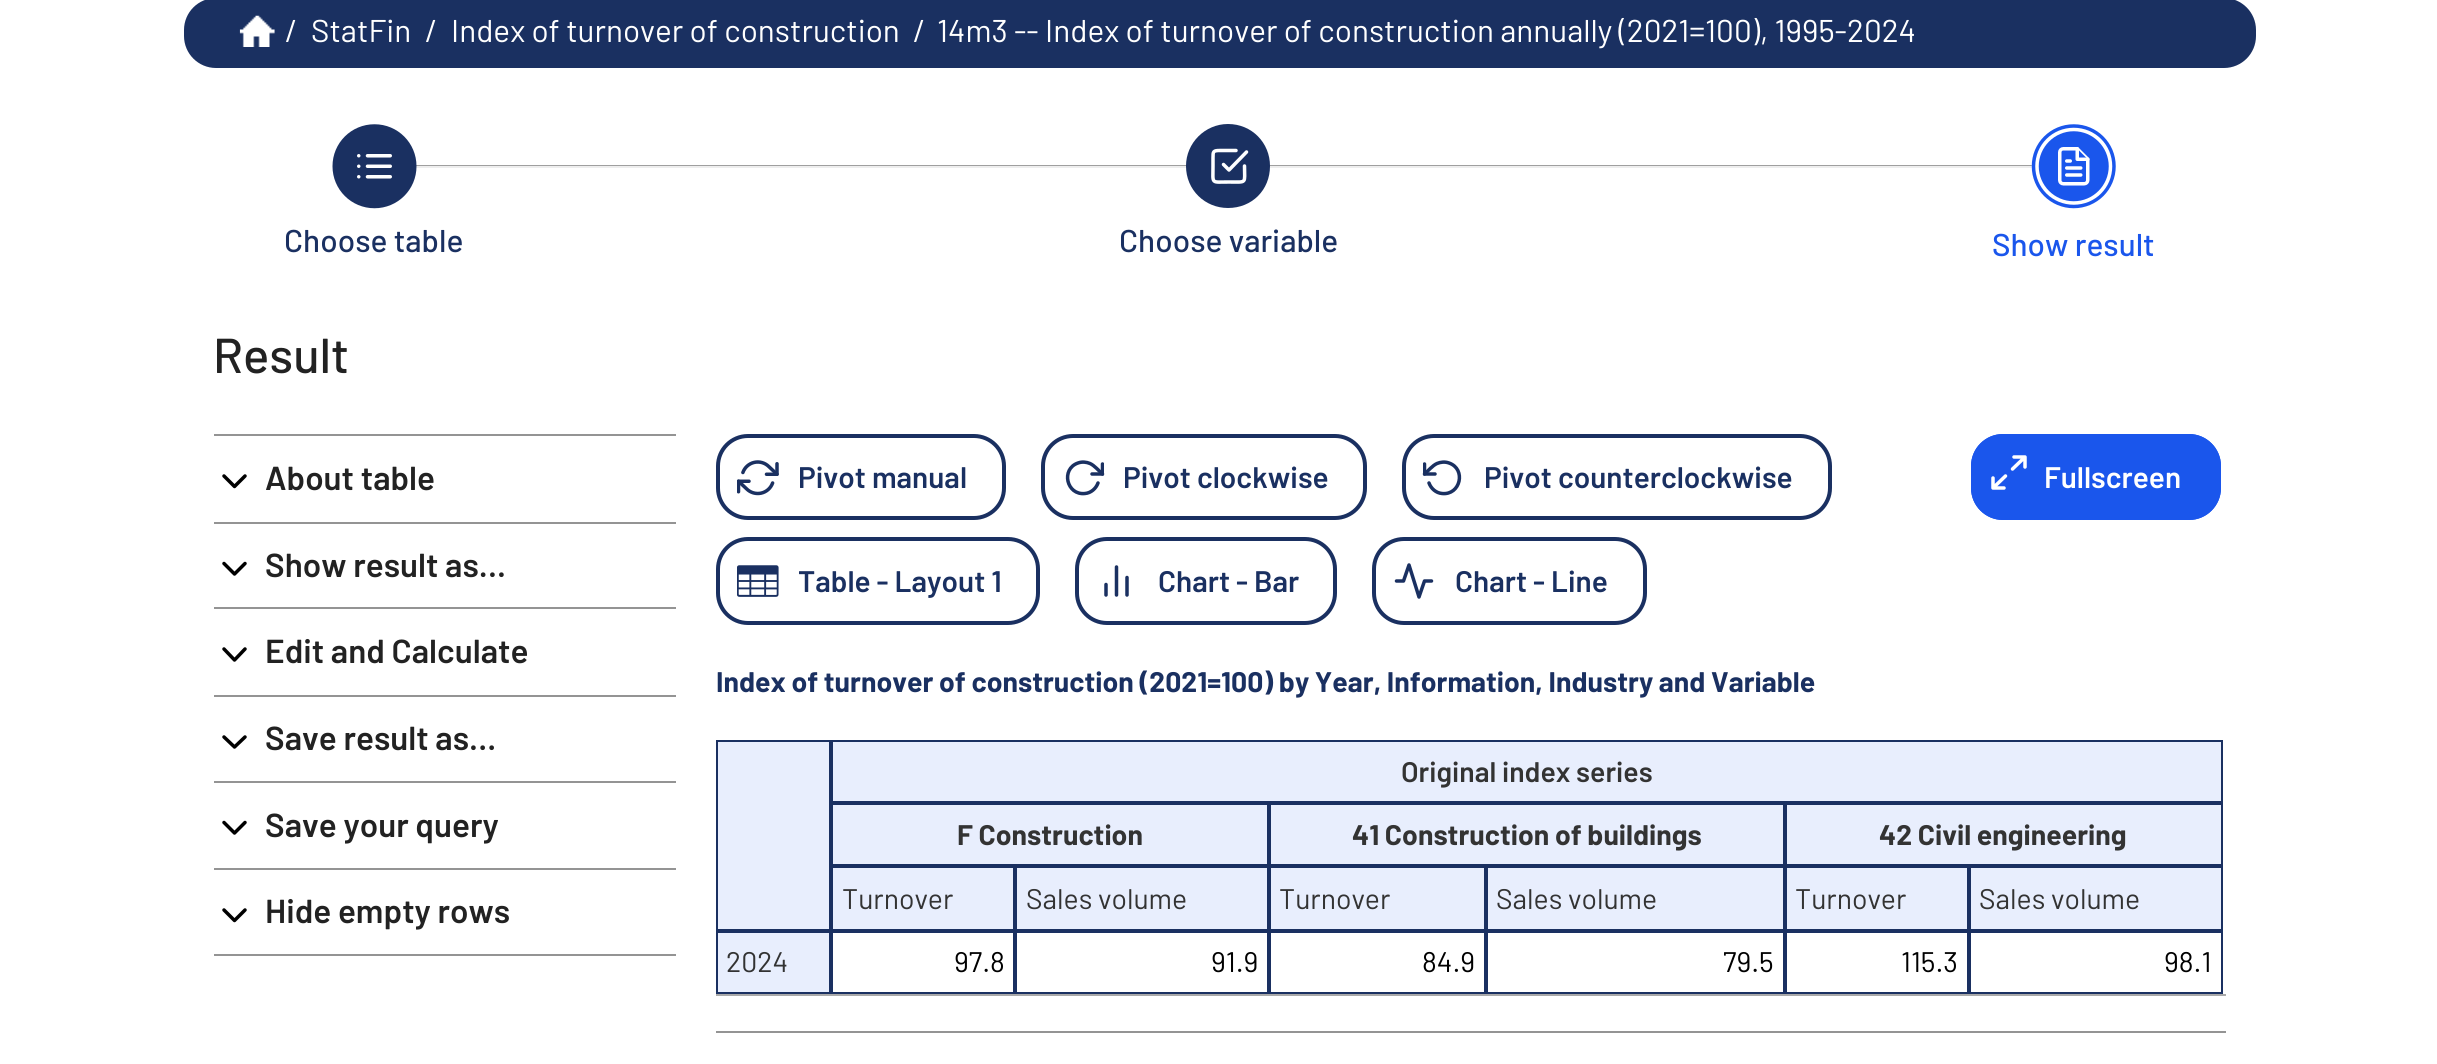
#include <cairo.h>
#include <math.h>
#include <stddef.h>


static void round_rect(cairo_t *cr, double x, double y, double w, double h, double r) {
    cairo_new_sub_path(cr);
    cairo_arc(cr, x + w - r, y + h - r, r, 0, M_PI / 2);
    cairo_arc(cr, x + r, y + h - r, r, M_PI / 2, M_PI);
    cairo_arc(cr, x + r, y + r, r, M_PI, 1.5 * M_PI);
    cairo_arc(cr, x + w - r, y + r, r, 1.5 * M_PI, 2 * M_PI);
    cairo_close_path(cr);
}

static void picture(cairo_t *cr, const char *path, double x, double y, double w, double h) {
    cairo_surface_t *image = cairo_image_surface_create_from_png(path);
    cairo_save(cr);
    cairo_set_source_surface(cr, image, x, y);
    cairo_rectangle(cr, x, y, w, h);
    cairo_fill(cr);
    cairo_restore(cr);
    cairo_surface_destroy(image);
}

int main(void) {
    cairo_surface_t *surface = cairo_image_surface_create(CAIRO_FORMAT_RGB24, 2437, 1064);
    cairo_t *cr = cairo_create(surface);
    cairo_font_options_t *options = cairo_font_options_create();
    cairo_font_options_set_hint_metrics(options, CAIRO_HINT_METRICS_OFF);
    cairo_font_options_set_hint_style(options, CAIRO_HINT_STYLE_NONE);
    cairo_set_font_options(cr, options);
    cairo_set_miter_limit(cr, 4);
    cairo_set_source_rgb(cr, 1, 1, 1);
    cairo_paint(cr);
    cairo_set_source_rgb(cr, 0.102, 0.188, 0.38);
    round_rect(cr, 184, -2, 2072, 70, 32);
    cairo_fill(cr);
    picture(cr, "img1.png", 239, 15, 36, 32);
    cairo_select_font_face(cr, "Barlow", CAIRO_FONT_SLANT_NORMAL, CAIRO_FONT_WEIGHT_NORMAL);
    cairo_set_font_size(cr, 31.5);
    cairo_set_source_rgb(cr, 1, 1, 1);
    cairo_move_to(cr, 285, 42);
    cairo_show_text(cr, "/");
    cairo_move_to(cr, 311, 42);
    cairo_show_text(cr, "StatFin");
    cairo_move_to(cr, 425, 42);
    cairo_show_text(cr, "/");
    cairo_move_to(cr, 451, 42);
    cairo_show_text(cr, "Index of turnover of construction");
    cairo_move_to(cr, 913, 42);
    cairo_show_text(cr, "/");
    cairo_move_to(cr, 937, 42);
    cairo_show_text(cr, "14m3 -- Index of turnover of construction annually (2021=100), 1995-2024");
    cairo_set_source_rgb(cr, 0.624, 0.624, 0.624);
    cairo_rectangle(cr, 416, 165, 771, 1);
    cairo_fill(cr);
    cairo_set_source_rgb(cr, 0.933, 0.933, 0.933);
    cairo_rectangle(cr, 416, 166, 771, 2);
    cairo_fill(cr);
    cairo_set_source_rgb(cr, 0.624, 0.624, 0.624);
    cairo_rectangle(cr, 1269, 165, 763, 1);
    cairo_fill(cr);
    cairo_set_source_rgb(cr, 0.933, 0.933, 0.933);
    cairo_rectangle(cr, 1269, 166, 763, 2);
    cairo_fill(cr);
    picture(cr, "img2.png", 332, 124, 85, 85);
    cairo_select_font_face(cr, "Barlow Medium", CAIRO_FONT_SLANT_NORMAL, CAIRO_FONT_WEIGHT_NORMAL);
    cairo_set_source_rgb(cr, 0.102, 0.188, 0.38);
    cairo_move_to(cr, 284, 252);
    cairo_show_text(cr, "Choose table");
    cairo_new_path(cr);
    cairo_move_to(cr, 1228, 124);
    cairo_curve_to(cr, 1252, 124, 1270, 143, 1270, 166);
    cairo_curve_to(cr, 1270, 190, 1252, 208, 1228, 208);
    cairo_curve_to(cr, 1205, 208, 1186, 190, 1186, 166);
    cairo_curve_to(cr, 1186, 143, 1205, 124, 1228, 124);
    cairo_close_path(cr);
    cairo_fill(cr);
    cairo_new_path(cr);
    cairo_move_to(cr, 1223.5, 164.5);
    cairo_line_to(cr, 1229, 170);
    cairo_line_to(cr, 1246.5, 152);
    cairo_move_to(cr, 1244.5, 166);
    cairo_curve_to(cr, 1244.5, 184, 1247.5, 182, 1229, 182);
    cairo_curve_to(cr, 1210.5, 182, 1213, 184.5, 1213, 166);
    cairo_line_to(cr, 1213, 158);
    cairo_curve_to(cr, 1213, 151.5, 1213, 150.5, 1220, 150.5);
    cairo_line_to(cr, 1236, 150.5);
    cairo_set_source_rgb(cr, 1, 1, 1);
    cairo_set_line_width(cr, 3.5);
    cairo_set_line_cap(cr, CAIRO_LINE_CAP_ROUND);
    cairo_set_line_join(cr, CAIRO_LINE_JOIN_ROUND);
    cairo_stroke(cr);
    cairo_set_source_rgb(cr, 0.102, 0.188, 0.38);
    cairo_move_to(cr, 1119, 252);
    cairo_show_text(cr, "Choose variable");
    picture(cr, "img3.png", 2031, 124, 85, 85);
    cairo_set_source_rgb(cr, 0.102, 0.337, 0.925);
    cairo_move_to(cr, 1992, 256);
    cairo_show_text(cr, "Show result");
    cairo_set_font_size(cr, 49);
    cairo_set_source_rgb(cr, 0.133, 0.133, 0.133);
    cairo_move_to(cr, 213, 373);
    cairo_show_text(cr, "Result");
    cairo_set_source_rgb(cr, 0.58, 0.58, 0.58);
    cairo_rectangle(cr, 214, 434, 462, 2);
    cairo_fill(cr);
    cairo_new_path(cr);
    cairo_move_to(cr, 224, 476);
    cairo_line_to(cr, 234.5, 486.5);
    cairo_line_to(cr, 245, 476);
    cairo_set_source_rgb(cr, 0, 0, 0);
    cairo_stroke(cr);
    cairo_select_font_face(cr, "Barlow SemiBold", CAIRO_FONT_SLANT_NORMAL, CAIRO_FONT_WEIGHT_NORMAL);
    cairo_set_font_size(cr, 33.25);
    cairo_set_source_rgb(cr, 0.133, 0.133, 0.133);
    cairo_move_to(cr, 265, 490);
    cairo_show_text(cr, "About table");
    cairo_set_source_rgb(cr, 0.58, 0.58, 0.58);
    cairo_rectangle(cr, 214, 522, 462, 2);
    cairo_fill(cr);
    cairo_new_path(cr);
    cairo_move_to(cr, 224, 563.5);
    cairo_line_to(cr, 234.5, 574);
    cairo_line_to(cr, 245, 563.5);
    cairo_set_source_rgb(cr, 0, 0, 0);
    cairo_stroke(cr);
    cairo_set_source_rgb(cr, 0.133, 0.133, 0.133);
    cairo_move_to(cr, 265, 577);
    cairo_show_text(cr, "Show result as...");
    cairo_set_source_rgb(cr, 0.58, 0.58, 0.58);
    cairo_rectangle(cr, 214, 607, 462, 2);
    cairo_fill(cr);
    cairo_new_path(cr);
    cairo_move_to(cr, 224, 649);
    cairo_line_to(cr, 234.5, 660);
    cairo_line_to(cr, 245, 649);
    cairo_set_source_rgb(cr, 0, 0, 0);
    cairo_stroke(cr);
    cairo_set_source_rgb(cr, 0.133, 0.133, 0.133);
    cairo_move_to(cr, 265, 663);
    cairo_show_text(cr, "Edit and Calculate");
    cairo_set_source_rgb(cr, 0.58, 0.58, 0.58);
    cairo_rectangle(cr, 214, 695, 462, 2);
    cairo_fill(cr);
    cairo_new_path(cr);
    cairo_move_to(cr, 224, 737);
    cairo_line_to(cr, 234.5, 747);
    cairo_line_to(cr, 245, 737);
    cairo_set_source_rgb(cr, 0, 0, 0);
    cairo_stroke(cr);
    cairo_set_source_rgb(cr, 0.133, 0.133, 0.133);
    cairo_move_to(cr, 265, 750);
    cairo_show_text(cr, "Save result as...");
    cairo_set_source_rgb(cr, 0.58, 0.58, 0.58);
    cairo_rectangle(cr, 214, 781, 462, 2);
    cairo_fill(cr);
    cairo_new_path(cr);
    cairo_move_to(cr, 224, 822.5);
    cairo_line_to(cr, 234.5, 833);
    cairo_line_to(cr, 245, 822.5);
    cairo_set_source_rgb(cr, 0, 0, 0);
    cairo_stroke(cr);
    cairo_set_source_rgb(cr, 0.133, 0.133, 0.133);
    cairo_move_to(cr, 265, 837);
    cairo_show_text(cr, "Save your query");
    cairo_set_source_rgb(cr, 0.58, 0.58, 0.58);
    cairo_rectangle(cr, 214, 868, 462, 2);
    cairo_fill(cr);
    cairo_new_path(cr);
    cairo_move_to(cr, 224, 910);
    cairo_line_to(cr, 234.5, 920.5);
    cairo_line_to(cr, 245, 910);
    cairo_set_source_rgb(cr, 0, 0, 0);
    cairo_stroke(cr);
    cairo_set_source_rgb(cr, 0.133, 0.133, 0.133);
    cairo_move_to(cr, 265, 923);
    cairo_show_text(cr, "Hide empty rows");
    cairo_set_source_rgb(cr, 0.58, 0.58, 0.58);
    cairo_rectangle(cr, 214, 954, 462, 2);
    cairo_fill(cr);
    picture(cr, "img4.png", 737, 460, 42, 36);
    round_rect(cr, 718, 436, 286, 82, 30);
    cairo_set_source_rgb(cr, 0.102, 0.188, 0.38);
    cairo_set_line_width(cr, 4);
    cairo_set_line_cap(cr, CAIRO_LINE_CAP_BUTT);
    cairo_set_line_join(cr, CAIRO_LINE_JOIN_MITER);
    cairo_stroke(cr);
    cairo_set_font_size(cr, 29.75);
    cairo_move_to(cr, 798, 488);
    cairo_show_text(cr, "Pivot manual");
    cairo_save(cr);
    cairo_rectangle(cr, 1062, 457, 42, 42);
    cairo_clip(cr);
    cairo_new_path(cr);
    cairo_move_to(cr, 1102.5, 464);
    cairo_line_to(cr, 1102.5, 474);
    cairo_line_to(cr, 1092, 474);
    cairo_set_line_width(cr, 3.5);
    cairo_set_line_cap(cr, CAIRO_LINE_CAP_ROUND);
    cairo_set_line_join(cr, CAIRO_LINE_JOIN_ROUND);
    cairo_stroke(cr);
    cairo_restore(cr);
    cairo_new_path(cr);
    cairo_move_to(cr, 1098, 483);
    cairo_curve_to(cr, 1096, 488.5, 1091, 493, 1085, 493.5);
    cairo_curve_to(cr, 1066.5, 495.5, 1060.5, 469, 1078, 463);
    cairo_curve_to(cr, 1082, 461.5, 1086.5, 462, 1090, 463.5);
    cairo_curve_to(cr, 1094.5, 465.5, 1099, 471, 1102.5, 474);
    cairo_set_line_width(cr, 3.5);
    cairo_set_line_cap(cr, CAIRO_LINE_CAP_ROUND);
    cairo_set_line_join(cr, CAIRO_LINE_JOIN_ROUND);
    cairo_stroke(cr);
    round_rect(cr, 1043, 436, 322, 82, 30);
    cairo_set_line_width(cr, 4);
    cairo_set_line_cap(cr, CAIRO_LINE_CAP_BUTT);
    cairo_set_line_join(cr, CAIRO_LINE_JOIN_MITER);
    cairo_stroke(cr);
    cairo_move_to(cr, 1123, 488);
    cairo_show_text(cr, "Pivot clockwise");
    cairo_save(cr);
    cairo_rectangle(cr, 1423, 457, 42, 42);
    cairo_clip(cr);
    cairo_new_path(cr);
    cairo_move_to(cr, 1424.5, 464);
    cairo_line_to(cr, 1424.5, 474);
    cairo_line_to(cr, 1435, 474);
    cairo_set_line_width(cr, 3.5);
    cairo_set_line_cap(cr, CAIRO_LINE_CAP_ROUND);
    cairo_set_line_join(cr, CAIRO_LINE_JOIN_ROUND);
    cairo_stroke(cr);
    cairo_restore(cr);
    cairo_new_path(cr);
    cairo_move_to(cr, 1429, 483);
    cairo_curve_to(cr, 1431, 488.5, 1436, 493, 1442, 493.5);
    cairo_curve_to(cr, 1460.5, 495.5, 1466.5, 469, 1449, 463);
    cairo_curve_to(cr, 1445, 461.5, 1440.5, 462, 1437, 463.5);
    cairo_curve_to(cr, 1432.5, 465.5, 1428, 471, 1424.5, 474);
    cairo_set_line_width(cr, 3.5);
    cairo_set_line_cap(cr, CAIRO_LINE_CAP_ROUND);
    cairo_set_line_join(cr, CAIRO_LINE_JOIN_ROUND);
    cairo_stroke(cr);
    round_rect(cr, 1404, 436, 426, 82, 30);
    cairo_set_line_width(cr, 4);
    cairo_set_line_cap(cr, CAIRO_LINE_CAP_BUTT);
    cairo_set_line_join(cr, CAIRO_LINE_JOIN_MITER);
    cairo_stroke(cr);
    cairo_move_to(cr, 1484, 488);
    cairo_show_text(cr, "Pivot counterclockwise");
    picture(cr, "img5.png", 737, 565, 42, 32);
    round_rect(cr, 718, 539, 320, 84, 30);
    cairo_stroke(cr);
    cairo_move_to(cr, 798, 592);
    cairo_show_text(cr, "Table - Layout 1");
    cairo_new_path(cr);
    cairo_move_to(cr, 1127, 595);
    cairo_line_to(cr, 1127, 577.5);
    cairo_move_to(cr, 1116.5, 595);
    cairo_line_to(cr, 1116.5, 567);
    cairo_move_to(cr, 1106, 595);
    cairo_line_to(cr, 1106, 584.5);
    cairo_set_line_width(cr, 3.5);
    cairo_set_line_cap(cr, CAIRO_LINE_CAP_ROUND);
    cairo_set_line_join(cr, CAIRO_LINE_JOIN_ROUND);
    cairo_stroke(cr);
    round_rect(cr, 1077, 539, 258, 84, 30);
    cairo_set_line_width(cr, 4);
    cairo_set_line_cap(cr, CAIRO_LINE_CAP_BUTT);
    cairo_set_line_join(cr, CAIRO_LINE_JOIN_MITER);
    cairo_stroke(cr);
    cairo_move_to(cr, 1158, 592);
    cairo_show_text(cr, "Chart - Bar");
    cairo_new_path(cr);
    cairo_move_to(cr, 1431.5, 581);
    cairo_line_to(cr, 1424.5, 581);
    cairo_line_to(cr, 1419, 597);
    cairo_line_to(cr, 1409, 565);
    cairo_line_to(cr, 1403.5, 581);
    cairo_line_to(cr, 1396.5, 581);
    cairo_set_line_width(cr, 3.5);
    cairo_set_line_cap(cr, CAIRO_LINE_CAP_ROUND);
    cairo_set_line_join(cr, CAIRO_LINE_JOIN_ROUND);
    cairo_stroke(cr);
    round_rect(cr, 1374, 539, 271, 84, 30);
    cairo_set_line_width(cr, 4);
    cairo_set_line_cap(cr, CAIRO_LINE_CAP_BUTT);
    cairo_set_line_join(cr, CAIRO_LINE_JOIN_MITER);
    cairo_stroke(cr);
    cairo_move_to(cr, 1455, 592);
    cairo_show_text(cr, "Chart - Line");
    cairo_set_source_rgb(cr, 0.102, 0.337, 0.925);
    round_rect(cr, 1971, 434, 250, 86, 32);
    cairo_fill(cr);
    cairo_new_path(cr);
    cairo_move_to(cr, 2014, 457);
    cairo_line_to(cr, 2025, 457);
    cairo_line_to(cr, 2025, 467);
    cairo_move_to(cr, 2004, 488);
    cairo_line_to(cr, 1993, 488);
    cairo_line_to(cr, 1993, 478);
    cairo_move_to(cr, 2025, 457);
    cairo_line_to(cr, 2012.5, 469);
    cairo_move_to(cr, 1993, 488);
    cairo_line_to(cr, 2005.5, 476);
    cairo_set_source_rgb(cr, 1, 1, 1);
    cairo_set_line_width(cr, 3.5);
    cairo_set_line_cap(cr, CAIRO_LINE_CAP_ROUND);
    cairo_set_line_join(cr, CAIRO_LINE_JOIN_ROUND);
    cairo_stroke(cr);
    round_rect(cr, 1973, 436, 246, 82, 30);
    cairo_set_source_rgb(cr, 0.102, 0.337, 0.925);
    cairo_set_line_width(cr, 4);
    cairo_set_line_cap(cr, CAIRO_LINE_CAP_BUTT);
    cairo_set_line_join(cr, CAIRO_LINE_JOIN_MITER);
    cairo_stroke(cr);
    cairo_set_source_rgb(cr, 1, 1, 1);
    cairo_move_to(cr, 2044, 488);
    cairo_show_text(cr, "Fullscreen");
    cairo_set_source_rgb(cr, 0.663, 0.663, 0.663);
    cairo_rectangle(cr, 716, 994, 1510, 2);
    cairo_fill(cr);
    cairo_select_font_face(cr, "Barlow", CAIRO_FONT_SLANT_NORMAL, CAIRO_FONT_WEIGHT_BOLD);
    cairo_set_font_size(cr, 28.35);
    cairo_set_source_rgb(cr, 0.102, 0.188, 0.38);
    cairo_move_to(cr, 716, 692);
    cairo_show_text(cr, "Index of turnover of construction (2021=100) by Year, Information, Industry and Variable");
    cairo_set_source_rgb(cr, 0.91, 0.933, 0.992);
    cairo_rectangle(cr, 717, 741, 113, 189);
    cairo_fill_preserve(cr);
    cairo_set_source_rgb(cr, 0.102, 0.188, 0.38);
    cairo_set_line_width(cr, 2);
    cairo_stroke(cr);
    cairo_set_source_rgb(cr, 0.91, 0.933, 0.992);
    cairo_rectangle(cr, 832, 741, 1390, 61);
    cairo_fill_preserve(cr);
    cairo_set_source_rgb(cr, 0.102, 0.188, 0.38);
    cairo_stroke(cr);
    cairo_select_font_face(cr, "Barlow SemiBold", CAIRO_FONT_SLANT_NORMAL, CAIRO_FONT_WEIGHT_NORMAL);
    cairo_set_source_rgb(cr, 0.2, 0.2, 0.2);
    cairo_move_to(cr, 1401, 782);
    cairo_show_text(cr, "Original index series");
    cairo_set_source_rgb(cr, 0.91, 0.933, 0.992);
    cairo_rectangle(cr, 832, 804, 436, 61);
    cairo_fill_preserve(cr);
    cairo_set_source_rgb(cr, 0.102, 0.188, 0.38);
    cairo_stroke(cr);
    cairo_select_font_face(cr, "Barlow", CAIRO_FONT_SLANT_NORMAL, CAIRO_FONT_WEIGHT_BOLD);
    cairo_set_source_rgb(cr, 0.2, 0.2, 0.2);
    cairo_move_to(cr, 957, 845);
    cairo_show_text(cr, "F Construction");
    cairo_set_source_rgb(cr, 0.91, 0.933, 0.992);
    cairo_rectangle(cr, 1270, 804, 514, 61);
    cairo_fill_preserve(cr);
    cairo_set_source_rgb(cr, 0.102, 0.188, 0.38);
    cairo_stroke(cr);
    cairo_set_source_rgb(cr, 0.2, 0.2, 0.2);
    cairo_move_to(cr, 1352, 845);
    cairo_show_text(cr, "41 Construction of buildings");
    cairo_set_source_rgb(cr, 0.91, 0.933, 0.992);
    cairo_rectangle(cr, 1786, 804, 436, 61);
    cairo_fill_preserve(cr);
    cairo_set_source_rgb(cr, 0.102, 0.188, 0.38);
    cairo_stroke(cr);
    cairo_set_source_rgb(cr, 0.2, 0.2, 0.2);
    cairo_move_to(cr, 1879, 845);
    cairo_show_text(cr, "42 Civil engineering");
    cairo_set_source_rgb(cr, 0.91, 0.933, 0.992);
    cairo_rectangle(cr, 832, 867, 182, 63);
    cairo_fill_preserve(cr);
    cairo_set_source_rgb(cr, 0.102, 0.188, 0.38);
    cairo_stroke(cr);
    cairo_select_font_face(cr, "Barlow", CAIRO_FONT_SLANT_NORMAL, CAIRO_FONT_WEIGHT_NORMAL);
    cairo_set_source_rgb(cr, 0.2, 0.2, 0.2);
    cairo_move_to(cr, 842, 909);
    cairo_show_text(cr, "Turnover");
    cairo_set_source_rgb(cr, 0.91, 0.933, 0.992);
    cairo_rectangle(cr, 1016, 867, 252, 63);
    cairo_fill_preserve(cr);
    cairo_set_source_rgb(cr, 0.102, 0.188, 0.38);
    cairo_stroke(cr);
    cairo_set_source_rgb(cr, 0.2, 0.2, 0.2);
    cairo_move_to(cr, 1026, 909);
    cairo_show_text(cr, "Sales volume");
    cairo_set_source_rgb(cr, 0.91, 0.933, 0.992);
    cairo_rectangle(cr, 1270, 867, 215, 63);
    cairo_fill_preserve(cr);
    cairo_set_source_rgb(cr, 0.102, 0.188, 0.38);
    cairo_stroke(cr);
    cairo_set_source_rgb(cr, 0.2, 0.2, 0.2);
    cairo_move_to(cr, 1279, 909);
    cairo_show_text(cr, "Turnover");
    cairo_set_source_rgb(cr, 0.91, 0.933, 0.992);
    cairo_rectangle(cr, 1487, 867, 297, 63);
    cairo_fill_preserve(cr);
    cairo_set_source_rgb(cr, 0.102, 0.188, 0.38);
    cairo_stroke(cr);
    cairo_set_source_rgb(cr, 0.2, 0.2, 0.2);
    cairo_move_to(cr, 1496, 909);
    cairo_show_text(cr, "Sales volume");
    cairo_set_source_rgb(cr, 0.91, 0.933, 0.992);
    cairo_rectangle(cr, 1786, 867, 182, 63);
    cairo_fill_preserve(cr);
    cairo_set_source_rgb(cr, 0.102, 0.188, 0.38);
    cairo_stroke(cr);
    cairo_set_source_rgb(cr, 0.2, 0.2, 0.2);
    cairo_move_to(cr, 1795, 909);
    cairo_show_text(cr, "Turnover");
    cairo_set_source_rgb(cr, 0.91, 0.933, 0.992);
    cairo_rectangle(cr, 1970, 867, 252, 63);
    cairo_fill_preserve(cr);
    cairo_set_source_rgb(cr, 0.102, 0.188, 0.38);
    cairo_stroke(cr);
    cairo_set_source_rgb(cr, 0.2, 0.2, 0.2);
    cairo_move_to(cr, 1979, 909);
    cairo_show_text(cr, "Sales volume");
    cairo_set_source_rgb(cr, 0.91, 0.933, 0.992);
    cairo_rectangle(cr, 717, 932, 113, 61);
    cairo_fill_preserve(cr);
    cairo_set_source_rgb(cr, 0.102, 0.188, 0.38);
    cairo_stroke(cr);
    cairo_set_source_rgb(cr, 0.2, 0.2, 0.2);
    cairo_move_to(cr, 726, 972);
    cairo_show_text(cr, "2024");
    cairo_rectangle(cr, 832, 932, 182, 61);
    cairo_set_source_rgb(cr, 0.102, 0.188, 0.38);
    cairo_stroke(cr);
    cairo_set_source_rgb(cr, 0, 0, 0);
    cairo_move_to(cr, 954, 972);
    cairo_show_text(cr, "97.8");
    cairo_rectangle(cr, 1016, 932, 252, 61);
    cairo_set_source_rgb(cr, 0.102, 0.188, 0.38);
    cairo_stroke(cr);
    cairo_set_source_rgb(cr, 0, 0, 0);
    cairo_move_to(cr, 1211, 972);
    cairo_show_text(cr, "91.9");
    cairo_rectangle(cr, 1270, 932, 215, 61);
    cairo_set_source_rgb(cr, 0.102, 0.188, 0.38);
    cairo_stroke(cr);
    cairo_set_source_rgb(cr, 0, 0, 0);
    cairo_move_to(cr, 1422, 972);
    cairo_show_text(cr, "84.9");
    cairo_rectangle(cr, 1487, 932, 297, 61);
    cairo_set_source_rgb(cr, 0.102, 0.188, 0.38);
    cairo_stroke(cr);
    cairo_set_source_rgb(cr, 0, 0, 0);
    cairo_move_to(cr, 1723, 972);
    cairo_show_text(cr, "79.5");
    cairo_rectangle(cr, 1786, 932, 182, 61);
    cairo_set_source_rgb(cr, 0.102, 0.188, 0.38);
    cairo_stroke(cr);
    cairo_set_source_rgb(cr, 0, 0, 0);
    cairo_move_to(cr, 1901, 972);
    cairo_show_text(cr, "115.3");
    cairo_rectangle(cr, 1970, 932, 252, 61);
    cairo_set_source_rgb(cr, 0.102, 0.188, 0.38);
    cairo_stroke(cr);
    cairo_set_source_rgb(cr, 0, 0, 0);
    cairo_move_to(cr, 2164, 972);
    cairo_show_text(cr, "98.1");
    cairo_set_source_rgb(cr, 0.58, 0.58, 0.58);
    cairo_rectangle(cr, 716, 1031, 1510, 2);
    cairo_fill(cr);
    cairo_surface_write_to_png(surface, "page.png");
    cairo_font_options_destroy(options);
    cairo_destroy(cr);
    cairo_surface_destroy(surface);
    return 0;
}
